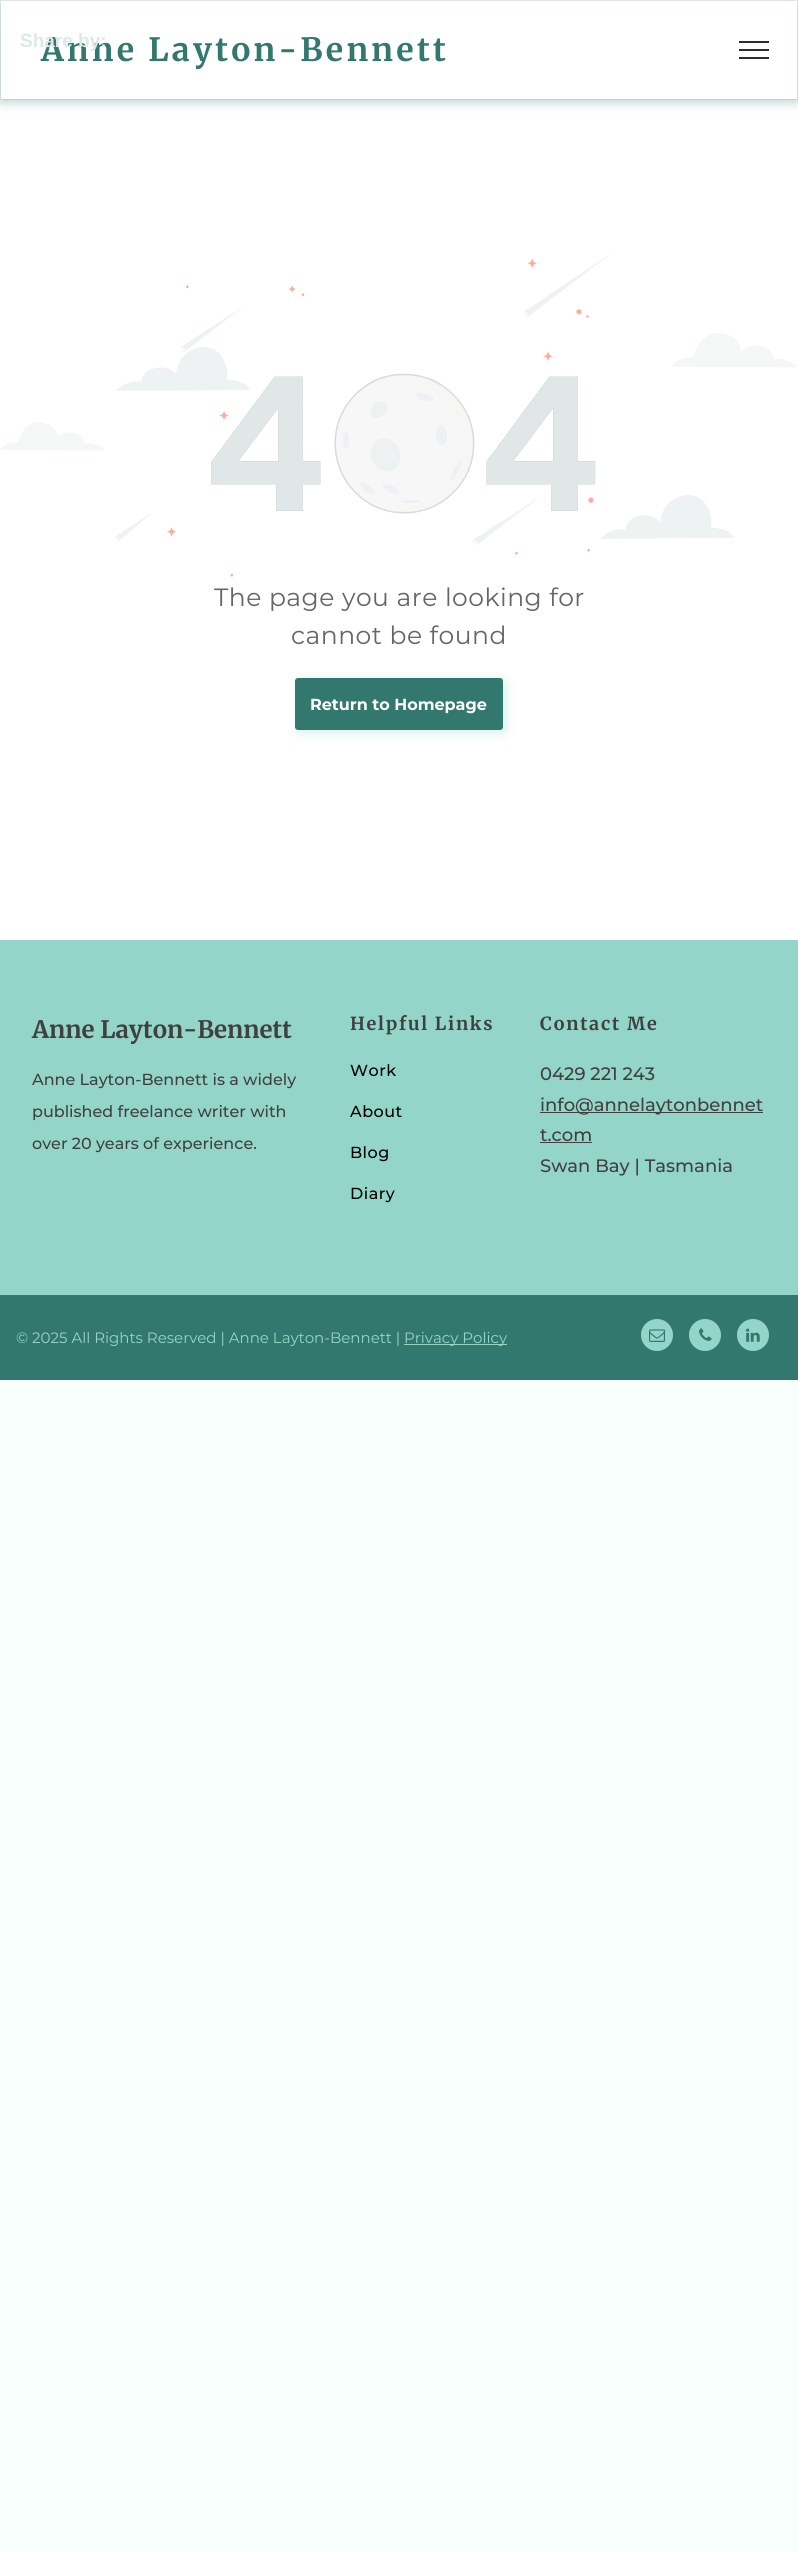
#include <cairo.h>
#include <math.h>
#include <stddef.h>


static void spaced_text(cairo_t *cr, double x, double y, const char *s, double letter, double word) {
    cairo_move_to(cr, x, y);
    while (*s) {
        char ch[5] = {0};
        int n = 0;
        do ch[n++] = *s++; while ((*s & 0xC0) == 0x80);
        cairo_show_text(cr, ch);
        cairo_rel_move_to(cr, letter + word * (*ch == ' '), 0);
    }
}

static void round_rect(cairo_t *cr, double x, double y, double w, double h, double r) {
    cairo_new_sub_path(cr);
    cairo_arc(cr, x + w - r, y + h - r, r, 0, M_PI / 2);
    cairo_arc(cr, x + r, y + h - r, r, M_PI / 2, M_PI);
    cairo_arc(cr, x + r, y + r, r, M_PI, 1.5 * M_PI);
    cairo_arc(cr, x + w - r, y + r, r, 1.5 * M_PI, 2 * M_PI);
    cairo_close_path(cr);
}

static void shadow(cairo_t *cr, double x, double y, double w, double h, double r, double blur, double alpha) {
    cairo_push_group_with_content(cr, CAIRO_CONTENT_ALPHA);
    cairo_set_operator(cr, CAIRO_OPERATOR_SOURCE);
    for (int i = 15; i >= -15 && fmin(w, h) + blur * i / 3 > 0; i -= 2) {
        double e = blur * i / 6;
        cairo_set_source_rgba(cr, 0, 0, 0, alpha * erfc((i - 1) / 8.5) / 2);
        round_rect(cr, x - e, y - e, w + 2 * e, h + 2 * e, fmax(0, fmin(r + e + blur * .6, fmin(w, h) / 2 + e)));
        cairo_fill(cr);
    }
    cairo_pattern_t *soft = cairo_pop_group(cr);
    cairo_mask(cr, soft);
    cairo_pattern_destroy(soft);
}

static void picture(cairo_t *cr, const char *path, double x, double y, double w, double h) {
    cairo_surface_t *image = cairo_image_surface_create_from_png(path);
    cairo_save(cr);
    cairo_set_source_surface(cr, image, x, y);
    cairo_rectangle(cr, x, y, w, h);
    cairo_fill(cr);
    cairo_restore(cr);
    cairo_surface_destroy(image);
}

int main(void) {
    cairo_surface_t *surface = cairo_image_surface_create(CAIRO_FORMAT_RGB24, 798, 2552);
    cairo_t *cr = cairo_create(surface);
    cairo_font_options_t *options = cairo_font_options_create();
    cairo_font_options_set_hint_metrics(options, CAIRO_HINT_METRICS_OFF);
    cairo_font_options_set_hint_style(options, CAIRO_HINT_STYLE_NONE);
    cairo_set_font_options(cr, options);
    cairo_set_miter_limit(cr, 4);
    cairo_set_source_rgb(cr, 0.965, 1, 0.992);
    cairo_paint(cr);
    cairo_set_source_rgb(cr, 1, 1, 1);
    cairo_rectangle(cr, 0.5, 0.5, 797, 99);
    cairo_fill_preserve(cr);
    cairo_set_source_rgb(cr, 0.937, 0.937, 0.937);
    cairo_set_line_width(cr, 1);
    cairo_stroke(cr);
    cairo_set_source_rgb(cr, 1, 1, 1);
    cairo_rectangle(cr, 0, 100, 798, 840);
    cairo_fill(cr);
    cairo_save(cr);
    cairo_set_fill_rule(cr, CAIRO_FILL_RULE_EVEN_ODD);
    cairo_new_path(cr);
    cairo_move_to(cr, 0, 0);
    cairo_line_to(cr, 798, 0);
    cairo_line_to(cr, 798, 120);
    cairo_line_to(cr, 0, 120);
    cairo_close_path(cr);
    cairo_move_to(cr, 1, 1);
    cairo_line_to(cr, 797, 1);
    cairo_line_to(cr, 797, 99);
    cairo_line_to(cr, 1, 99);
    cairo_close_path(cr);
    cairo_clip(cr);
    cairo_set_source_rgb(cr, 0.196, 0.471, 0.435);
    shadow(cr, 1, 4, 796, 98, 0, 5.5, 0.35);
    cairo_restore(cr);
    cairo_select_font_face(cr, "Merriweather", CAIRO_FONT_SLANT_NORMAL, CAIRO_FONT_WEIGHT_BOLD);
    cairo_set_font_size(cr, 32);
    cairo_set_source_rgb(cr, 0.196, 0.471, 0.435);
    spaced_text(cr, 41, 61, "Anne Layton-Bennett", 3.25, 0);
    cairo_select_font_face(cr, "Liberation Sans", CAIRO_FONT_SLANT_NORMAL, CAIRO_FONT_WEIGHT_BOLD);
    cairo_set_font_size(cr, 19);
    cairo_set_source_rgb(cr, 0.867, 0.91, 0.906);
    cairo_move_to(cr, 20, 47);
    cairo_show_text(cr, "Share by:");
    cairo_set_source_rgb(cr, 0.176, 0.18, 0.196);
    cairo_rectangle(cr, 739, 41, 30, 2);
    cairo_fill(cr);
    cairo_rectangle(cr, 739, 49, 30, 2);
    cairo_fill(cr);
    cairo_rectangle(cr, 739, 57, 30, 2);
    cairo_fill(cr);
    picture(cr, "img1.png", 0, 252, 797, 325);
    cairo_select_font_face(cr, "Montserrat", CAIRO_FONT_SLANT_NORMAL, CAIRO_FONT_WEIGHT_NORMAL);
    cairo_set_font_size(cr, 25);
    cairo_set_source_rgb(cr, 0.4, 0.4, 0.4);
    spaced_text(cr, 214, 606, "The page you are looking for", 0.5, 0);
    spaced_text(cr, 291, 644, "cannot be found", 0.5, 0);
    cairo_set_source_rgb(cr, 0.835, 0.941, 0.914);
    shadow(cr, 298, 681, 208, 52, 3, 5.5, 1);
    cairo_set_source_rgb(cr, 0.196, 0.471, 0.435);
    round_rect(cr, 295, 678, 208, 52, 3);
    cairo_fill(cr);
    cairo_select_font_face(cr, "Montserrat", CAIRO_FONT_SLANT_NORMAL, CAIRO_FONT_WEIGHT_BOLD);
    cairo_set_font_size(cr, 16);
    cairo_set_source_rgb(cr, 1, 1, 1);
    cairo_move_to(cr, 310, 710);
    cairo_show_text(cr, "Return to Homepage");
    cairo_set_source_rgb(cr, 0.58, 0.835, 0.792);
    cairo_rectangle(cr, 0, 940, 798, 355);
    cairo_fill(cr);
    cairo_select_font_face(cr, "Merriweather", CAIRO_FONT_SLANT_NORMAL, CAIRO_FONT_WEIGHT_BOLD);
    cairo_set_font_size(cr, 24);
    cairo_set_source_rgb(cr, 0.251, 0.251, 0.251);
    cairo_move_to(cr, 32, 1038);
    cairo_show_text(cr, "Anne Layton-Bennett");
    cairo_select_font_face(cr, "Montserrat Medium", CAIRO_FONT_SLANT_NORMAL, CAIRO_FONT_WEIGHT_NORMAL);
    cairo_set_font_size(cr, 16);
    cairo_move_to(cr, 32, 1085);
    cairo_show_text(cr, "Anne Layton-Bennett is a widely");
    cairo_move_to(cr, 32, 1117);
    cairo_show_text(cr, "published freelance writer with");
    cairo_move_to(cr, 32, 1149);
    cairo_show_text(cr, "over 20 years of experience.");
    cairo_select_font_face(cr, "Merriweather", CAIRO_FONT_SLANT_NORMAL, CAIRO_FONT_WEIGHT_BOLD);
    cairo_set_font_size(cr, 18);
    spaced_text(cr, 350, 1030, "Helpful Links", 1.75, 0);
    cairo_select_font_face(cr, "Montserrat Medium", CAIRO_FONT_SLANT_NORMAL, CAIRO_FONT_WEIGHT_NORMAL);
    cairo_set_font_size(cr, 16);
    cairo_set_source_rgb(cr, 0, 0, 0);
    spaced_text(cr, 350, 1076, "Work", 0.5, 0);
    spaced_text(cr, 350, 1117, "About", 0.5, 0);
    spaced_text(cr, 350, 1158, "Blog", 0.5, 0);
    spaced_text(cr, 350, 1199, "Diary", 0.5, 0);
    cairo_select_font_face(cr, "Merriweather", CAIRO_FONT_SLANT_NORMAL, CAIRO_FONT_WEIGHT_BOLD);
    cairo_set_font_size(cr, 18);
    cairo_set_source_rgb(cr, 0.251, 0.251, 0.251);
    spaced_text(cr, 540, 1030, "Contact Me", 1.75, 0);
    cairo_select_font_face(cr, "Montserrat Medium", CAIRO_FONT_SLANT_NORMAL, CAIRO_FONT_WEIGHT_NORMAL);
    cairo_move_to(cr, 540, 1080);
    cairo_show_text(cr, "0429 221 243");
    cairo_rectangle(cr, 540, 1112, 223, 1);
    cairo_fill(cr);
    cairo_move_to(cr, 540, 1111);
    cairo_show_text(cr, "info@annelaytonbennet");
    cairo_move_to(cr, 540, 1141);
    cairo_show_text(cr, "t.com");
    cairo_rectangle(cr, 540, 1142, 52, 1);
    cairo_fill(cr);
    cairo_move_to(cr, 540, 1172);
    cairo_show_text(cr, "Swan Bay | Tasmania");
    cairo_set_source_rgb(cr, 0.196, 0.471, 0.435);
    cairo_rectangle(cr, 0, 1295, 798, 85);
    cairo_fill(cr);
    cairo_select_font_face(cr, "Montserrat", CAIRO_FONT_SLANT_NORMAL, CAIRO_FONT_WEIGHT_NORMAL);
    cairo_set_font_size(cr, 15);
    cairo_set_source_rgb(cr, 0.58, 0.835, 0.792);
    cairo_move_to(cr, 16, 1343);
    cairo_show_text(cr, "© 2025 All Rights Reserved | Anne Layton-Bennett |");
    cairo_rectangle(cr, 404, 1344, 103, 1);
    cairo_fill(cr);
    cairo_move_to(cr, 404, 1343);
    cairo_show_text(cr, "Privacy Policy");
    cairo_new_path(cr);
    cairo_arc(cr, 657, 1335, 16, 0, 2 * M_PI);
    cairo_fill(cr);
    picture(cr, "img2.png", 649, 1329, 16, 13);
    cairo_arc(cr, 705, 1335, 16, 0, 2 * M_PI);
    cairo_fill(cr);
    picture(cr, "img3.png", 699, 1328, 13, 13);
    cairo_arc(cr, 753, 1335, 16, 0, 2 * M_PI);
    cairo_fill(cr);
    picture(cr, "img4.png", 746, 1328, 14, 14);
    cairo_surface_write_to_png(surface, "page.png");
    cairo_font_options_destroy(options);
    cairo_destroy(cr);
    cairo_surface_destroy(surface);
    return 0;
}
